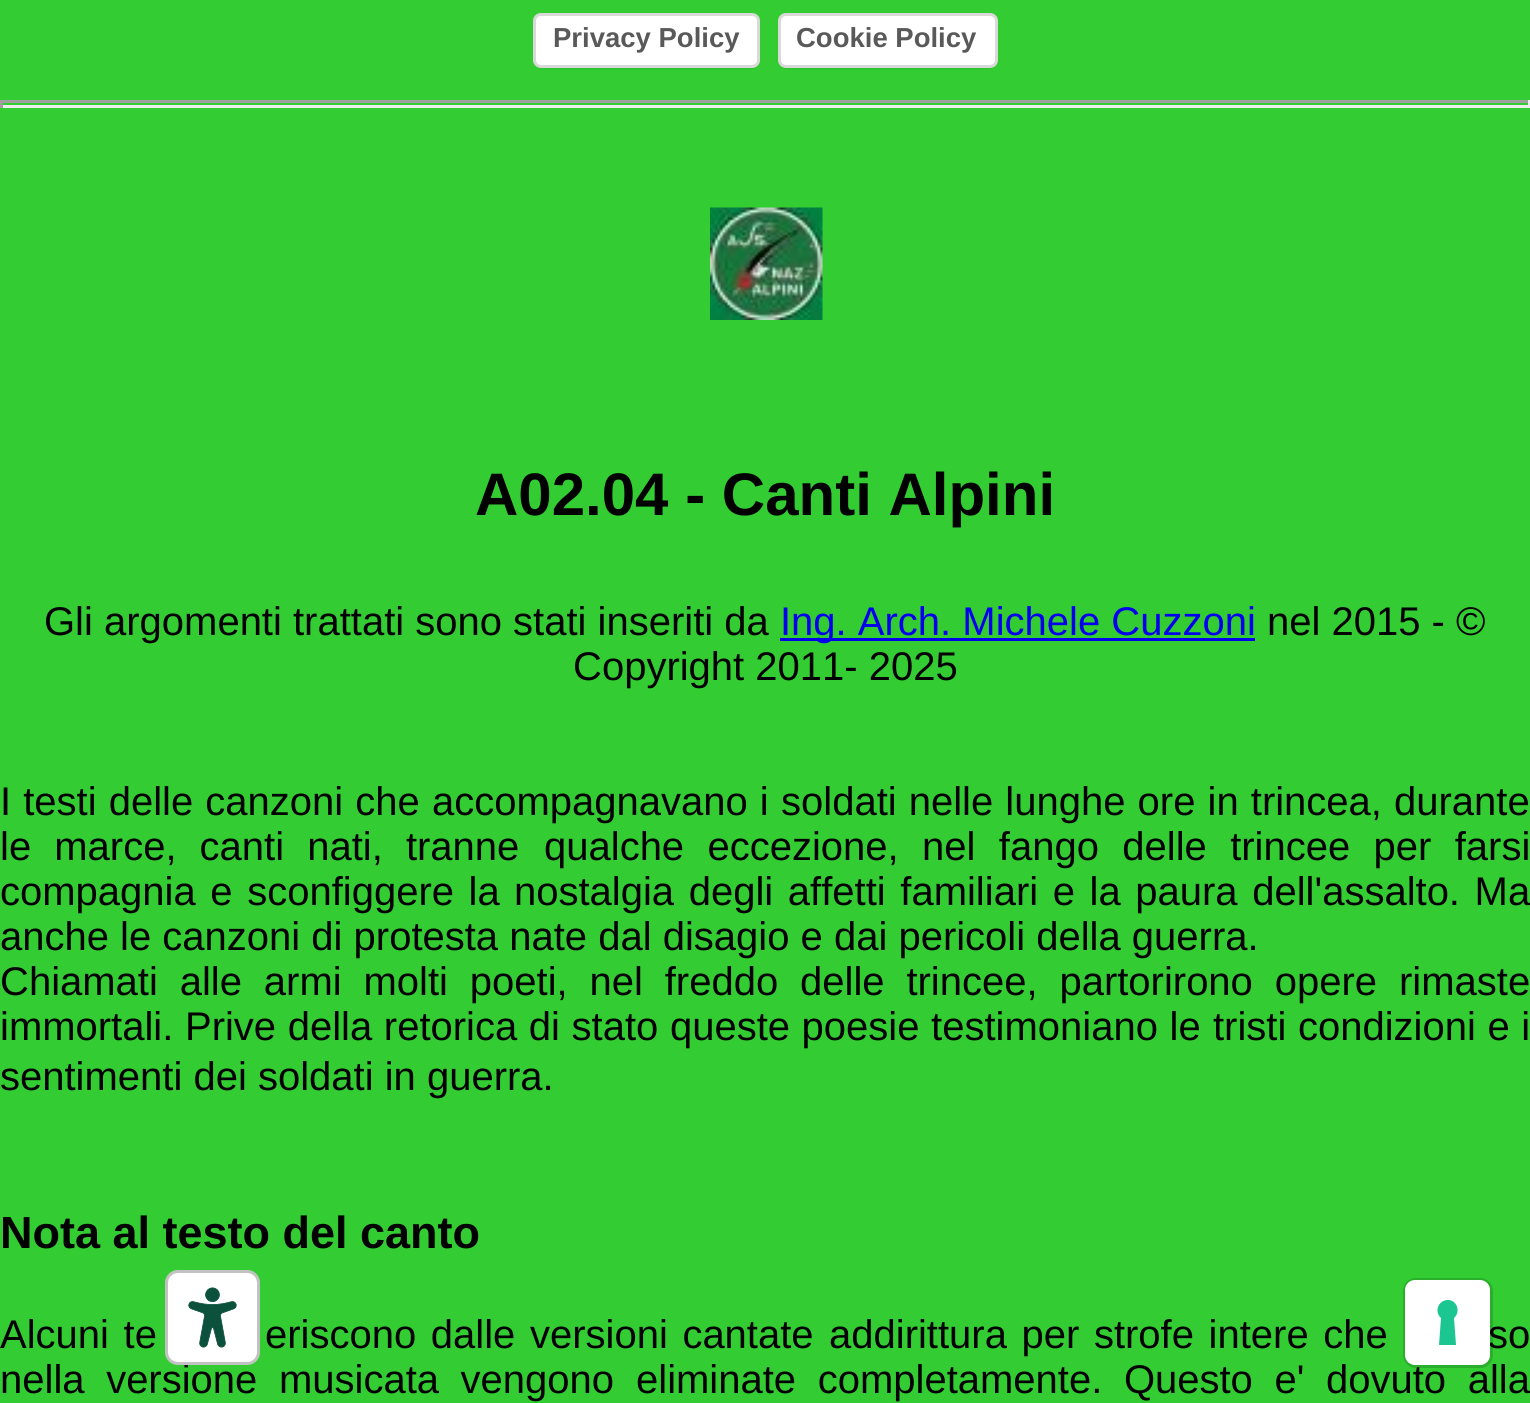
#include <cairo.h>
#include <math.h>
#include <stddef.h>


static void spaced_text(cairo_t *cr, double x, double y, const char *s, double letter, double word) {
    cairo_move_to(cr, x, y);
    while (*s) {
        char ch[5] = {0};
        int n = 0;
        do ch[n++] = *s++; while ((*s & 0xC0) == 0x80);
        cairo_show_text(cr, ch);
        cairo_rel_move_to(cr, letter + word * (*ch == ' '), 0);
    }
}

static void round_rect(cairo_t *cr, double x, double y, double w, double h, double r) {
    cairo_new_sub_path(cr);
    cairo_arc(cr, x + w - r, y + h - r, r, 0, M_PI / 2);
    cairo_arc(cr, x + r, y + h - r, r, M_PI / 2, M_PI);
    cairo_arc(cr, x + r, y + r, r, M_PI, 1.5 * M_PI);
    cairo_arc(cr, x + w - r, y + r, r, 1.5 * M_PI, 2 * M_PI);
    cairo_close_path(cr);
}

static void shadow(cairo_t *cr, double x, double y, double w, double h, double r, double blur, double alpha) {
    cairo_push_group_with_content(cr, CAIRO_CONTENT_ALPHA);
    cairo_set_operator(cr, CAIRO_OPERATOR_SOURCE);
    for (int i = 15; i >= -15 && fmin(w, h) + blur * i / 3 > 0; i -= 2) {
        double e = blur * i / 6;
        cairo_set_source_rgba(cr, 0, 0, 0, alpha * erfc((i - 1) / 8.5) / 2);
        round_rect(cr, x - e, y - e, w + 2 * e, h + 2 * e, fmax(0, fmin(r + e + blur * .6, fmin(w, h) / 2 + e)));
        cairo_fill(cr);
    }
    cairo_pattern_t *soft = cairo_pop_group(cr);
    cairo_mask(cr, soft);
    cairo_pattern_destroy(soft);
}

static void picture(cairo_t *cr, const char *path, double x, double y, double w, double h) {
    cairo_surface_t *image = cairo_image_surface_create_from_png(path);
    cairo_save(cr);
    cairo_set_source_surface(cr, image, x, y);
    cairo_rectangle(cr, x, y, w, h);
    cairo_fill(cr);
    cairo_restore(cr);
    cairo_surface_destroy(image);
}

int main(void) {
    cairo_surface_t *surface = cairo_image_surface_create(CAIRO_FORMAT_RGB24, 1530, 1403);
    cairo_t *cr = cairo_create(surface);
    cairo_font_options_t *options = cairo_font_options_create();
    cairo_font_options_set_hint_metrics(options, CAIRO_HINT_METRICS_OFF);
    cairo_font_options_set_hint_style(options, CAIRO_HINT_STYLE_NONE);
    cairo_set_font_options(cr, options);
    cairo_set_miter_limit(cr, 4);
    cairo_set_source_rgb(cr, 0.2, 0.8, 0.2);
    cairo_paint(cr);
    cairo_set_source_rgb(cr, 0, 0, 0);
    shadow(cr, 535, 18, 223, 50, 5, 1, 0.15);
    cairo_set_source_rgb(cr, 1, 1, 1);
    round_rect(cr, 533, 13, 227, 55, 8);
    cairo_fill(cr);
    round_rect(cr, 534.5, 14.5, 224, 52, 6.5);
    cairo_set_source_rgba(cr, 0, 0, 0, 0.15);
    cairo_set_line_width(cr, 3);
    cairo_stroke(cr);
    cairo_select_font_face(cr, "Liberation Sans", CAIRO_FONT_SLANT_NORMAL, CAIRO_FONT_WEIGHT_BOLD);
    cairo_set_font_size(cr, 27.5);
    cairo_set_source_rgb(cr, 0.349, 0.349, 0.349);
    cairo_move_to(cr, 553, 47);
    cairo_show_text(cr, "Privacy Policy");
    cairo_set_source_rgb(cr, 0, 0, 0);
    shadow(cr, 780, 18, 215, 50, 5, 1, 0.15);
    cairo_set_source_rgb(cr, 1, 1, 1);
    round_rect(cr, 778, 13, 220, 55, 8);
    cairo_fill(cr);
    round_rect(cr, 779.5, 14.5, 217, 52, 6.5);
    cairo_set_source_rgba(cr, 0, 0, 0, 0.15);
    cairo_stroke(cr);
    cairo_set_source_rgb(cr, 0.349, 0.349, 0.349);
    cairo_move_to(cr, 796, 47);
    cairo_show_text(cr, "Cookie Policy");
    cairo_set_source_rgb(cr, 0.624, 0.624, 0.624);
    cairo_rectangle(cr, 0, 100, 1530, 3);
    cairo_fill(cr);
    cairo_set_source_rgb(cr, 0.933, 0.933, 0.933);
    cairo_rectangle(cr, 1528, 100, 2, 8);
    cairo_fill(cr);
    cairo_rectangle(cr, 0, 105, 1530, 3);
    cairo_fill(cr);
    cairo_set_source_rgb(cr, 0.624, 0.624, 0.624);
    cairo_rectangle(cr, 0, 100, 3, 8);
    cairo_fill(cr);
    picture(cr, "img1.png", 710, 207, 113, 113);
    cairo_set_font_size(cr, 60);
    cairo_set_source_rgb(cr, 0, 0, 0);
    cairo_move_to(cr, 475, 515);
    cairo_show_text(cr, "A02.04 - Canti Alpini");
    cairo_select_font_face(cr, "Liberation Sans", CAIRO_FONT_SLANT_NORMAL, CAIRO_FONT_WEIGHT_NORMAL);
    cairo_set_font_size(cr, 40);
    cairo_move_to(cr, 44, 635);
    cairo_show_text(cr, "Gli argomenti trattati sono stati inseriti da");
    cairo_set_source_rgb(cr, 0, 0, 0.933);
    cairo_rectangle(cr, 780, 638, 475, 3);
    cairo_fill(cr);
    cairo_move_to(cr, 780, 635);
    cairo_show_text(cr, "Ing. Arch. Michele Cuzzoni");
    cairo_set_source_rgb(cr, 0, 0, 0);
    cairo_move_to(cr, 1267, 635);
    cairo_show_text(cr, "nel 2015 - ©");
    cairo_move_to(cr, 573, 680);
    cairo_show_text(cr, "Copyright 2011- 2025");
    spaced_text(cr, 0, 815, "I testi delle canzoni che accompagnavano i", 0, 1);
    spaced_text(cr, 781, 815, "soldati nelle lunghe ore in trincea, durante", 0, 1);
    spaced_text(cr, 0, 860, "le marce, canti nati, tranne", 0, 12);
    spaced_text(cr, 544, 860, "qualche eccezione, nel fango delle trincee per farsi", 0, 12.25);
    spaced_text(cr, 0, 905, "compagnia e sconfiggere la", 0, 3.5);
    spaced_text(cr, 514, 905, "nostalgia degli affetti familiari e la paura dell'assalto. Ma", 0, 3.5);
    cairo_move_to(cr, 0, 950);
    cairo_show_text(cr, "anche le canzoni di protesta nate dal disagio e dai pericoli della guerra.");
    spaced_text(cr, 0, 995, "Chiamati alle armi molti poeti, nel freddo delle trincee, partorirono opere", 0, 10.75);
    cairo_move_to(cr, 1399, 995);
    cairo_show_text(cr, "rimaste");
    spaced_text(cr, 0, 1040, "immortali. Prive della retorica di stato queste poesie testimoniano le", 0, 0.5);
    spaced_text(cr, 1213, 1040, "tristi condizioni e i", 0, 0.5);
    cairo_move_to(cr, 0, 1090);
    cairo_show_text(cr, "sentimenti dei soldati in guerra.");
    cairo_select_font_face(cr, "Liberation Sans", CAIRO_FONT_SLANT_NORMAL, CAIRO_FONT_WEIGHT_BOLD);
    cairo_set_font_size(cr, 45);
    cairo_move_to(cr, 0, 1248);
    cairo_show_text(cr, "Nota al testo del canto");
    cairo_select_font_face(cr, "Liberation Sans", CAIRO_FONT_SLANT_NORMAL, CAIRO_FONT_WEIGHT_NORMAL);
    cairo_set_font_size(cr, 40);
    spaced_text(cr, 0, 1348, "Alcuni te", 0, 3.5);
    spaced_text(cr, 265, 1348, "eriscono dalle versioni cantate", 0, 3.5);
    spaced_text(cr, 829, 1348, "addirittura per strofe intere che", 0, 3.5);
    spaced_text(cr, 1488, 1348, "so", 0, 3.5);
    spaced_text(cr, 0, 1393, "nella versione musicata vengono", 0, 10.5);
    spaced_text(cr, 636, 1393, "eliminate completamente. Questo e' dovuto alla", 0, 10.5);
    cairo_set_source_rgb(cr, 1, 1, 1);
    round_rect(cr, 165, 1270, 95, 95, 13);
    cairo_fill(cr);
    picture(cr, "img2.png", 188, 1287, 49, 61);
    round_rect(cr, 166.5, 1271.5, 92, 92, 11.5);
    cairo_set_source_rgba(cr, 0, 0, 0, 0.24);
    cairo_stroke(cr);
    round_rect(cr, 1404.5, 1279.5, 87, 87, 11.5);
    cairo_set_source_rgba(cr, 0, 0, 0, 0.15);
    cairo_stroke(cr);
    cairo_set_source_rgb(cr, 1, 1, 1);
    round_rect(cr, 1405, 1280, 85, 85, 10);
    cairo_fill(cr);
    cairo_set_source_rgb(cr, 0.11, 0.776, 0.569);
    cairo_set_fill_rule(cr, CAIRO_FILL_RULE_EVEN_ODD);
    cairo_new_path(cr);
    cairo_move_to(cr, 1448, 1300);
    cairo_curve_to(cr, 1457, 1300, 1461, 1312, 1454, 1318);
    cairo_line_to(cr, 1456, 1345);
    cairo_line_to(cr, 1439, 1345);
    cairo_line_to(cr, 1441, 1318);
    cairo_curve_to(cr, 1434, 1312, 1438, 1300, 1448, 1300);
    cairo_close_path(cr);
    cairo_fill(cr);
    cairo_surface_write_to_png(surface, "page.png");
    cairo_font_options_destroy(options);
    cairo_destroy(cr);
    cairo_surface_destroy(surface);
    return 0;
}
